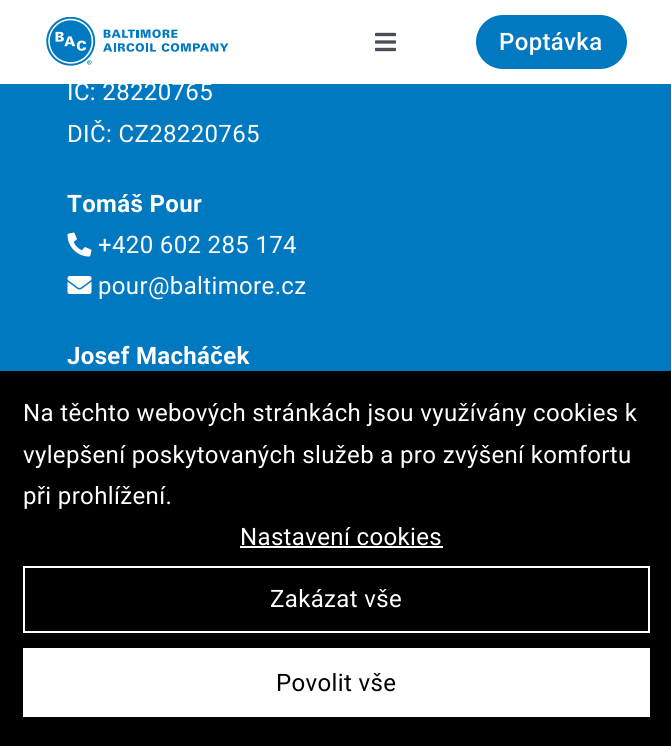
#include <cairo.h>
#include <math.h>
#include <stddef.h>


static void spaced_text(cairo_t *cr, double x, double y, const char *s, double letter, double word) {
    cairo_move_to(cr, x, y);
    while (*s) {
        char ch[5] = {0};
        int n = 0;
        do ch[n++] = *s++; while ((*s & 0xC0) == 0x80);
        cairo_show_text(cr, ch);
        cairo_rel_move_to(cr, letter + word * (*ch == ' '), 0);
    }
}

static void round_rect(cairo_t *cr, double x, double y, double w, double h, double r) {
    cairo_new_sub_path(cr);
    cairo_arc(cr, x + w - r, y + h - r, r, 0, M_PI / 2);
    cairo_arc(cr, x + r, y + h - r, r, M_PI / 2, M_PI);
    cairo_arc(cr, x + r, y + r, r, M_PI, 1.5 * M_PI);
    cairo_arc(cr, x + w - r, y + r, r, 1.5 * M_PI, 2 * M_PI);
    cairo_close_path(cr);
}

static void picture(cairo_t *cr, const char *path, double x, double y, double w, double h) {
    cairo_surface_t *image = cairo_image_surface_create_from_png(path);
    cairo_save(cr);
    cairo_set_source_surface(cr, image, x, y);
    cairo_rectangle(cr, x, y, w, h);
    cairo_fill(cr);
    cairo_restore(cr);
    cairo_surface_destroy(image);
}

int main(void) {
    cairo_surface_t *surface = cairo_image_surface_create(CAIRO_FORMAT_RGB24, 671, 746);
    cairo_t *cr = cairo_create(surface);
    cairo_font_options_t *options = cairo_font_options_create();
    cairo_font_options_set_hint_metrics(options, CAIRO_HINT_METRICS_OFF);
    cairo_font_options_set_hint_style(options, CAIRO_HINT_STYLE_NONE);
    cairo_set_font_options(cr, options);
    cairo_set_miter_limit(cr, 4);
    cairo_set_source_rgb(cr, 0, 0.475, 0.757);
    cairo_paint(cr);
    cairo_set_source_rgb(cr, 1, 1, 1);
    cairo_rectangle(cr, 0, 0, 671, 84);
    cairo_fill(cr);
    picture(cr, "img1.png", 46, 17, 183, 49);
    picture(cr, "img2.png", 375, 32, 21, 20);
    cairo_set_source_rgb(cr, 0, 0.475, 0.757);
    round_rect(cr, 476, 15, 151, 54, 27);
    cairo_fill(cr);
    cairo_select_font_face(cr, "Roboto Medium", CAIRO_FONT_SLANT_NORMAL, CAIRO_FONT_WEIGHT_NORMAL);
    cairo_set_font_size(cr, 24);
    cairo_set_source_rgb(cr, 1, 1, 1);
    spaced_text(cr, 499, 50, "Poptávka", 0.35, 0);
    cairo_select_font_face(cr, "Roboto", CAIRO_FONT_SLANT_NORMAL, CAIRO_FONT_WEIGHT_NORMAL);
    spaced_text(cr, 67, 100, "IČ: 28220765", 0.35, 0);
    spaced_text(cr, 67, 142, "DIČ: CZ28220765", 0.35, 0);
    cairo_select_font_face(cr, "Roboto", CAIRO_FONT_SLANT_NORMAL, CAIRO_FONT_WEIGHT_BOLD);
    spaced_text(cr, 67, 212, "Tomáš Pour", 0.35, 0);
    picture(cr, "img3.png", 67, 232, 25, 25);
    cairo_select_font_face(cr, "Roboto", CAIRO_FONT_SLANT_NORMAL, CAIRO_FONT_WEIGHT_NORMAL);
    spaced_text(cr, 98, 253, "+420 602 285 174", 0.35, 0);
    picture(cr, "img4.png", 67, 276, 25, 18);
    spaced_text(cr, 98, 294, "pour@baltimore.cz", 0.35, 0);
    cairo_select_font_face(cr, "Roboto", CAIRO_FONT_SLANT_NORMAL, CAIRO_FONT_WEIGHT_BOLD);
    spaced_text(cr, 67, 364, "Josef Macháček", 0.35, 0);
    cairo_set_source_rgb(cr, 0, 0, 0);
    cairo_rectangle(cr, 0, 371, 671, 375);
    cairo_fill(cr);
    cairo_select_font_face(cr, "Roboto", CAIRO_FONT_SLANT_NORMAL, CAIRO_FONT_WEIGHT_NORMAL);
    cairo_set_source_rgb(cr, 1, 1, 1);
    spaced_text(cr, 23, 421, "Na těchto webových stránkách jsou využívány cookies k", 0.35, 0);
    spaced_text(cr, 23, 463, "vylepšení poskytovaných služeb a pro zvýšení komfortu", 0.35, 0);
    spaced_text(cr, 23, 504, "při prohlížení.", 0.35, 0);
    spaced_text(cr, 240, 545, "Nastavení cookies", 0.35, 0);
    cairo_rectangle(cr, 240, 546, 203, 2);
    cairo_fill(cr);
    cairo_rectangle(cr, 24, 567, 625, 65);
    cairo_stroke(cr);
    spaced_text(cr, 270, 607, "Zakázat vše", 0.35, 0);
    cairo_rectangle(cr, 23, 648, 627, 69);
    cairo_fill(cr);
    cairo_set_source_rgb(cr, 0, 0, 0);
    spaced_text(cr, 276, 691, "Povolit vše", 0.35, 0);
    cairo_surface_write_to_png(surface, "page.png");
    cairo_font_options_destroy(options);
    cairo_destroy(cr);
    cairo_surface_destroy(surface);
    return 0;
}
